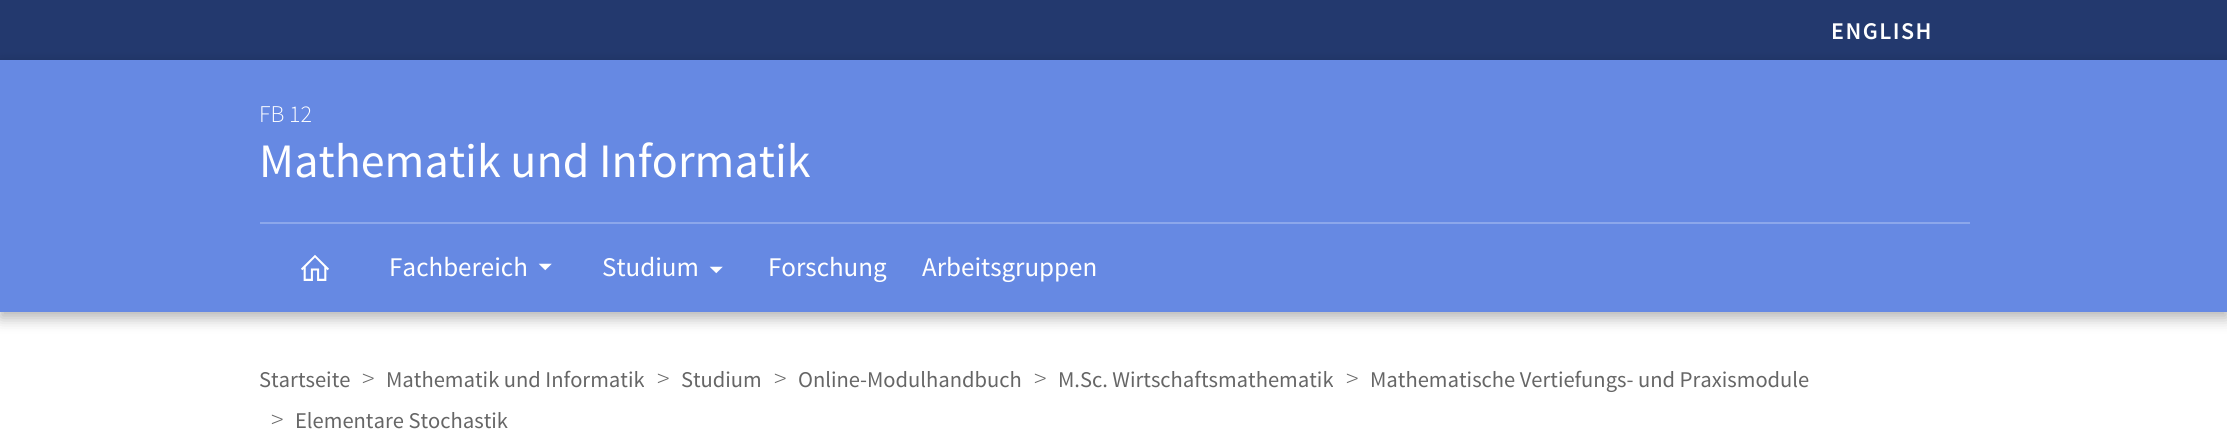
#include <cairo.h>
#include <math.h>
#include <stddef.h>


static void spaced_text(cairo_t *cr, double x, double y, const char *s, double letter, double word) {
    cairo_move_to(cr, x, y);
    while (*s) {
        char ch[5] = {0};
        int n = 0;
        do ch[n++] = *s++; while ((*s & 0xC0) == 0x80);
        cairo_show_text(cr, ch);
        cairo_rel_move_to(cr, letter + word * (*ch == ' '), 0);
    }
}

static void round_rect(cairo_t *cr, double x, double y, double w, double h, double r) {
    cairo_new_sub_path(cr);
    cairo_arc(cr, x + w - r, y + h - r, r, 0, M_PI / 2);
    cairo_arc(cr, x + r, y + h - r, r, M_PI / 2, M_PI);
    cairo_arc(cr, x + r, y + r, r, M_PI, 1.5 * M_PI);
    cairo_arc(cr, x + w - r, y + r, r, 1.5 * M_PI, 2 * M_PI);
    cairo_close_path(cr);
}

static void shadow(cairo_t *cr, double x, double y, double w, double h, double r, double blur, double alpha) {
    cairo_push_group_with_content(cr, CAIRO_CONTENT_ALPHA);
    cairo_set_operator(cr, CAIRO_OPERATOR_SOURCE);
    for (int i = 15; i >= -15 && fmin(w, h) + blur * i / 3 > 0; i -= 2) {
        double e = blur * i / 6;
        cairo_set_source_rgba(cr, 0, 0, 0, alpha * erfc((i - 1) / 8.5) / 2);
        round_rect(cr, x - e, y - e, w + 2 * e, h + 2 * e, fmax(0, fmin(r + e + blur * .6, fmin(w, h) / 2 + e)));
        cairo_fill(cr);
    }
    cairo_pattern_t *soft = cairo_pop_group(cr);
    cairo_mask(cr, soft);
    cairo_pattern_destroy(soft);
}

static void picture(cairo_t *cr, const char *path, double x, double y, double w, double h) {
    cairo_surface_t *image = cairo_image_surface_create_from_png(path);
    cairo_save(cr);
    cairo_set_source_surface(cr, image, x, y);
    cairo_rectangle(cr, x, y, w, h);
    cairo_fill(cr);
    cairo_restore(cr);
    cairo_surface_destroy(image);
}

int main(void) {
    cairo_surface_t *surface = cairo_image_surface_create(CAIRO_FORMAT_RGB24, 2227, 447);
    cairo_t *cr = cairo_create(surface);
    cairo_font_options_t *options = cairo_font_options_create();
    cairo_font_options_set_hint_metrics(options, CAIRO_HINT_METRICS_OFF);
    cairo_font_options_set_hint_style(options, CAIRO_HINT_STYLE_NONE);
    cairo_set_font_options(cr, options);
    cairo_set_miter_limit(cr, 4);
    cairo_set_source_rgb(cr, 1, 1, 1);
    cairo_paint(cr);
    cairo_set_source_rgb(cr, 0.137, 0.224, 0.431);
    cairo_rectangle(cr, 0, 0, 2227, 60);
    cairo_fill(cr);
    cairo_select_font_face(cr, "Source Sans Pro SemiBold", CAIRO_FONT_SLANT_NORMAL, CAIRO_FONT_WEIGHT_NORMAL);
    cairo_set_font_size(cr, 24);
    cairo_set_source_rgb(cr, 1, 1, 1);
    spaced_text(cr, 1831, 39, "ENGLISH", 1.5, 0);
    cairo_set_source_rgb(cr, 0, 0, 0);
    shadow(cr, 0, 66, 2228, 252, 0, 7.5, 0.3);
    cairo_set_source_rgb(cr, 0.4, 0.537, 0.89);
    cairo_rectangle(cr, 0, 60, 2227, 252);
    cairo_fill(cr);
    cairo_select_font_face(cr, "Source Sans Pro Light", CAIRO_FONT_SLANT_NORMAL, CAIRO_FONT_WEIGHT_NORMAL);
    cairo_set_source_rgb(cr, 1, 1, 1);
    cairo_move_to(cr, 259, 122);
    cairo_show_text(cr, "FB 12");
    cairo_select_font_face(cr, "Source Sans Pro", CAIRO_FONT_SLANT_NORMAL, CAIRO_FONT_WEIGHT_NORMAL);
    cairo_set_font_size(cr, 48);
    cairo_move_to(cr, 259, 177);
    cairo_show_text(cr, "Mathematik und Informatik");
    cairo_set_source_rgb(cr, 0.549, 0.655, 0.918);
    cairo_rectangle(cr, 260, 222, 1710, 2);
    cairo_fill(cr);
    picture(cr, "img1.png", 301, 254, 28, 27);
    cairo_set_font_size(cr, 27);
    cairo_set_source_rgb(cr, 1, 1, 1);
    cairo_move_to(cr, 389, 276);
    cairo_show_text(cr, "Fachbereich");
    picture(cr, "img2.png", 538, 263, 14, 8);
    cairo_move_to(cr, 602, 276);
    cairo_show_text(cr, "Studium");
    picture(cr, "img2.png", 709, 266, 14, 8);
    cairo_move_to(cr, 768, 276);
    cairo_show_text(cr, "Forschung");
    cairo_move_to(cr, 922, 276);
    cairo_show_text(cr, "Arbeitsgruppen");
    cairo_set_font_size(cr, 22.5);
    cairo_set_source_rgb(cr, 0.4, 0.4, 0.4);
    cairo_move_to(cr, 259, 387);
    cairo_show_text(cr, "Startseite");
    cairo_select_font_face(cr, "Source Sans Pro Light", CAIRO_FONT_SLANT_NORMAL, CAIRO_FONT_WEIGHT_NORMAL);
    cairo_set_font_size(cr, 26);
    cairo_move_to(cr, 362, 387);
    cairo_show_text(cr, ">");
    cairo_select_font_face(cr, "Source Sans Pro", CAIRO_FONT_SLANT_NORMAL, CAIRO_FONT_WEIGHT_NORMAL);
    cairo_set_font_size(cr, 22.5);
    cairo_move_to(cr, 386, 387);
    cairo_show_text(cr, "Mathematik und Informatik");
    cairo_select_font_face(cr, "Source Sans Pro Light", CAIRO_FONT_SLANT_NORMAL, CAIRO_FONT_WEIGHT_NORMAL);
    cairo_set_font_size(cr, 26);
    cairo_move_to(cr, 657, 387);
    cairo_show_text(cr, ">");
    cairo_select_font_face(cr, "Source Sans Pro", CAIRO_FONT_SLANT_NORMAL, CAIRO_FONT_WEIGHT_NORMAL);
    cairo_set_font_size(cr, 22.5);
    cairo_move_to(cr, 681, 387);
    cairo_show_text(cr, "Studium");
    cairo_select_font_face(cr, "Source Sans Pro Light", CAIRO_FONT_SLANT_NORMAL, CAIRO_FONT_WEIGHT_NORMAL);
    cairo_set_font_size(cr, 26);
    cairo_move_to(cr, 774, 387);
    cairo_show_text(cr, ">");
    cairo_select_font_face(cr, "Source Sans Pro", CAIRO_FONT_SLANT_NORMAL, CAIRO_FONT_WEIGHT_NORMAL);
    cairo_set_font_size(cr, 22.5);
    cairo_move_to(cr, 798, 387);
    cairo_show_text(cr, "Online-Modulhandbuch");
    cairo_select_font_face(cr, "Source Sans Pro Light", CAIRO_FONT_SLANT_NORMAL, CAIRO_FONT_WEIGHT_NORMAL);
    cairo_set_font_size(cr, 26);
    cairo_move_to(cr, 1034, 387);
    cairo_show_text(cr, ">");
    cairo_select_font_face(cr, "Source Sans Pro", CAIRO_FONT_SLANT_NORMAL, CAIRO_FONT_WEIGHT_NORMAL);
    cairo_set_font_size(cr, 22.5);
    cairo_move_to(cr, 1058, 387);
    cairo_show_text(cr, "M.Sc. Wirtschaftsmathematik");
    cairo_select_font_face(cr, "Source Sans Pro Light", CAIRO_FONT_SLANT_NORMAL, CAIRO_FONT_WEIGHT_NORMAL);
    cairo_set_font_size(cr, 26);
    cairo_move_to(cr, 1346, 387);
    cairo_show_text(cr, ">");
    cairo_select_font_face(cr, "Source Sans Pro", CAIRO_FONT_SLANT_NORMAL, CAIRO_FONT_WEIGHT_NORMAL);
    cairo_set_font_size(cr, 22.5);
    cairo_move_to(cr, 1370, 387);
    cairo_show_text(cr, "Mathematische Vertiefungs- und Praxismodule");
    cairo_select_font_face(cr, "Source Sans Pro Light", CAIRO_FONT_SLANT_NORMAL, CAIRO_FONT_WEIGHT_NORMAL);
    cairo_set_font_size(cr, 26);
    cairo_move_to(cr, 271, 428);
    cairo_show_text(cr, ">");
    cairo_select_font_face(cr, "Source Sans Pro", CAIRO_FONT_SLANT_NORMAL, CAIRO_FONT_WEIGHT_NORMAL);
    cairo_set_font_size(cr, 22.5);
    cairo_move_to(cr, 295, 428);
    cairo_show_text(cr, "Elementare Stochastik");
    cairo_surface_write_to_png(surface, "page.png");
    cairo_font_options_destroy(options);
    cairo_destroy(cr);
    cairo_surface_destroy(surface);
    return 0;
}
